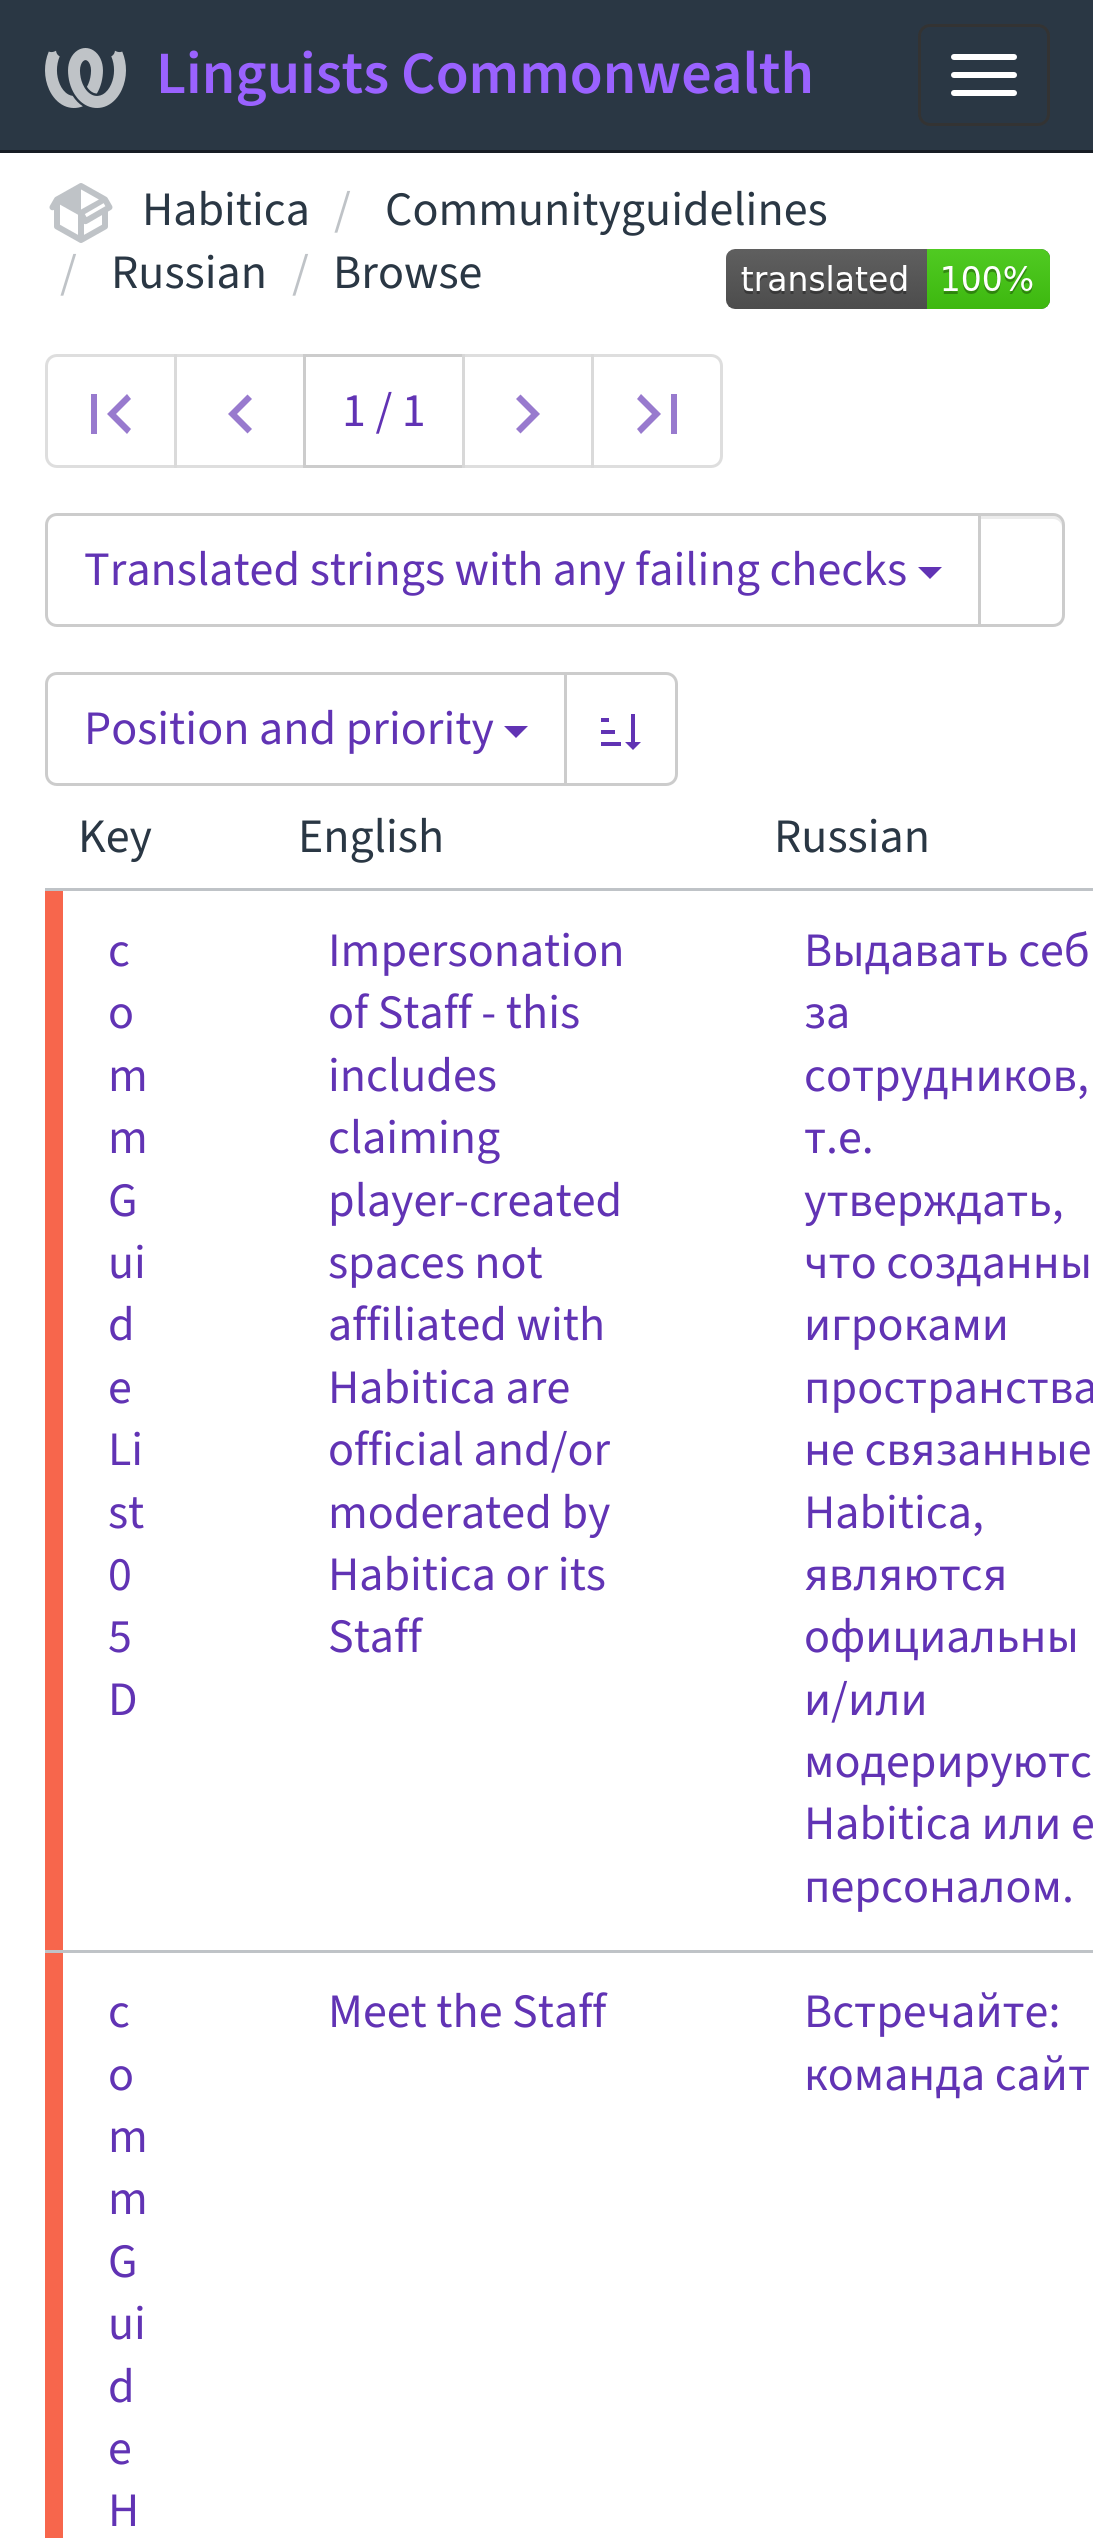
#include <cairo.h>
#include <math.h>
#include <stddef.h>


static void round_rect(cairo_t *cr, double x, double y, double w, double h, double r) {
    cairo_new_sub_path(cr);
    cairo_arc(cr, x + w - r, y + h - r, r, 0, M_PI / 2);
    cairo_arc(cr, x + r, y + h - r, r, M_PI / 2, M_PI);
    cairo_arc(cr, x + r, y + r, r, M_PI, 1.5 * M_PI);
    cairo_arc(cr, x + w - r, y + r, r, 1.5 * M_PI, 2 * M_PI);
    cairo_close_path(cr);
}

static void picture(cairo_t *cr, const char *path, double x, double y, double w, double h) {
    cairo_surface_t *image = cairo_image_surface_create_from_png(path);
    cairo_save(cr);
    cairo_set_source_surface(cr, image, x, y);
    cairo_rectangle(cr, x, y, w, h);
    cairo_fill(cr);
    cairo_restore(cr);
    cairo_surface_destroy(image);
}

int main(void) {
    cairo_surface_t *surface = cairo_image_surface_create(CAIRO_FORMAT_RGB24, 1093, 2538);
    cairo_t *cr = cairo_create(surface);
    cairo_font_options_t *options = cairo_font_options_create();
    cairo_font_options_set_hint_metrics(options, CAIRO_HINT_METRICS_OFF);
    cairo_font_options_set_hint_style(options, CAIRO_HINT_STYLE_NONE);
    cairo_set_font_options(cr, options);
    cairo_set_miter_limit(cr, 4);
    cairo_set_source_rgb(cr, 1, 1, 1);
    cairo_paint(cr);
    cairo_set_source_rgb(cr, 0.165, 0.216, 0.267);
    cairo_rectangle(cr, 0, 0, 1093, 150);
    cairo_fill(cr);
    cairo_set_source_rgb(cr, 0.09, 0.114, 0.141);
    cairo_rectangle(cr, 0, 150, 1093, 3);
    cairo_fill(cr);
    picture(cr, "img1.png", 45, 48, 81, 60);
    cairo_select_font_face(cr, "Source Sans 3 SemiBold", CAIRO_FONT_SLANT_NORMAL, CAIRO_FONT_WEIGHT_NORMAL);
    cairo_set_font_size(cr, 60);
    cairo_set_source_rgb(cr, 0.604, 0.384, 1);
    cairo_move_to(cr, 156, 93);
    cairo_show_text(cr, "Linguists Commonwealth");
    round_rect(cr, 919.5, 25.5, 129, 99, 10.5);
    cairo_set_source_rgb(cr, 0.2, 0.2, 0.2);
    cairo_set_line_width(cr, 3);
    cairo_stroke(cr);
    cairo_set_source_rgb(cr, 1, 1, 1);
    round_rect(cr, 951, 54, 66, 6, 3);
    cairo_fill(cr);
    round_rect(cr, 951, 72, 66, 6, 3);
    cairo_fill(cr);
    round_rect(cr, 951, 90, 66, 6, 3);
    cairo_fill(cr);
    picture(cr, "img2.png", 49, 183, 64, 60);
    cairo_select_font_face(cr, "Source Sans 3", CAIRO_FONT_SLANT_NORMAL, CAIRO_FONT_WEIGHT_NORMAL);
    cairo_set_font_size(cr, 48);
    cairo_set_source_rgb(cr, 0.165, 0.216, 0.267);
    cairo_move_to(cr, 142, 225);
    cairo_show_text(cr, "Habitica");
    cairo_set_source_rgb(cr, 0.749, 0.765, 0.78);
    cairo_move_to(cr, 334, 225);
    cairo_show_text(cr, "/");
    cairo_set_source_rgb(cr, 0.165, 0.216, 0.267);
    cairo_move_to(cr, 385, 225);
    cairo_show_text(cr, "Communityguidelines");
    cairo_set_source_rgb(cr, 0.749, 0.765, 0.78);
    cairo_move_to(cr, 60, 288);
    cairo_show_text(cr, "/");
    cairo_set_source_rgb(cr, 0.165, 0.216, 0.267);
    cairo_move_to(cr, 111, 288);
    cairo_show_text(cr, "Russian");
    cairo_set_source_rgb(cr, 0.749, 0.765, 0.78);
    cairo_move_to(cr, 292, 288);
    cairo_show_text(cr, "/");
    cairo_set_source_rgb(cr, 0.165, 0.216, 0.267);
    cairo_move_to(cr, 333, 288);
    cairo_show_text(cr, "Browse");
    picture(cr, "img3.png", 726, 249, 324, 60);
    cairo_new_path(cr);
    cairo_move_to(cr, 57, 355.5);
    cairo_line_to(cr, 175.5, 355.5);
    cairo_line_to(cr, 175.5, 466.5);
    cairo_line_to(cr, 57, 466.5);
    cairo_curve_to(cr, 51, 466.5, 46.5, 462, 46.5, 456);
    cairo_line_to(cr, 46.5, 366);
    cairo_curve_to(cr, 46.5, 360, 51, 355.5, 57, 355.5);
    cairo_close_path(cr);
    cairo_set_source_rgb(cr, 0.871, 0.871, 0.871);
    cairo_stroke(cr);
    cairo_set_source_rgb(cr, 0.596, 0.478, 0.808);
    cairo_new_path(cr);
    cairo_move_to(cr, 131, 429);
    cairo_line_to(cr, 116, 414);
    cairo_line_to(cr, 131, 399);
    cairo_line_to(cr, 127, 394);
    cairo_line_to(cr, 107, 414);
    cairo_line_to(cr, 127, 434);
    cairo_line_to(cr, 131, 429);
    cairo_move_to(cr, 91, 394);
    cairo_line_to(cr, 97, 394);
    cairo_line_to(cr, 97, 434);
    cairo_line_to(cr, 91, 434);
    cairo_close_path(cr);
    cairo_fill(cr);
    cairo_set_source_rgba(cr, 1, 1, 1, 0.65);
    cairo_rectangle(cr, 174, 354, 3, 114);
    cairo_fill(cr);
    cairo_rectangle(cr, 175.5, 355.5, 129, 111);
    cairo_set_source_rgba(cr, 0.8, 0.8, 0.8, 0.65);
    cairo_stroke(cr);
    cairo_set_source_rgb(cr, 0.596, 0.478, 0.808);
    cairo_new_path(cr);
    cairo_move_to(cr, 252, 429);
    cairo_line_to(cr, 237, 414);
    cairo_line_to(cr, 252, 399);
    cairo_line_to(cr, 247.5, 394.5);
    cairo_line_to(cr, 228, 414);
    cairo_line_to(cr, 247.5, 433.5);
    cairo_line_to(cr, 252, 429);
    cairo_fill(cr);
    cairo_rectangle(cr, 304.5, 355.5, 159, 111);
    cairo_set_source_rgb(cr, 0.8, 0.8, 0.8);
    cairo_stroke(cr);
    cairo_set_source_rgb(cr, 0.38, 0.2, 0.706);
    cairo_move_to(cr, 342, 426);
    cairo_show_text(cr, "1 / 1");
    cairo_set_source_rgba(cr, 1, 1, 1, 0.65);
    cairo_rectangle(cr, 462, 354, 3, 114);
    cairo_fill(cr);
    cairo_rectangle(cr, 463.5, 355.5, 129, 111);
    cairo_set_source_rgba(cr, 0.8, 0.8, 0.8, 0.65);
    cairo_stroke(cr);
    cairo_set_source_rgb(cr, 0.596, 0.478, 0.808);
    cairo_new_path(cr);
    cairo_move_to(cr, 516, 399);
    cairo_line_to(cr, 531, 414);
    cairo_line_to(cr, 516, 429);
    cairo_line_to(cr, 520.5, 433.5);
    cairo_line_to(cr, 540, 414);
    cairo_line_to(cr, 520.5, 394.5);
    cairo_line_to(cr, 516, 399);
    cairo_fill(cr);
    cairo_set_source_rgba(cr, 1, 1, 1, 0.65);
    cairo_new_path(cr);
    cairo_move_to(cr, 591, 354);
    cairo_line_to(cr, 711, 354);
    cairo_curve_to(cr, 717.5, 354, 723, 359.5, 723, 366);
    cairo_line_to(cr, 723, 456);
    cairo_curve_to(cr, 723, 462.5, 717.5, 468, 711, 468);
    cairo_line_to(cr, 591, 468);
    cairo_close_path(cr);
    cairo_fill(cr);
    cairo_new_path(cr);
    cairo_move_to(cr, 592.5, 355.5);
    cairo_line_to(cr, 711, 355.5);
    cairo_curve_to(cr, 717, 355.5, 721.5, 360, 721.5, 366);
    cairo_line_to(cr, 721.5, 456);
    cairo_curve_to(cr, 721.5, 462, 717, 466.5, 711, 466.5);
    cairo_line_to(cr, 592.5, 466.5);
    cairo_close_path(cr);
    cairo_set_source_rgba(cr, 0.8, 0.8, 0.8, 0.65);
    cairo_stroke(cr);
    cairo_set_source_rgb(cr, 0.596, 0.478, 0.808);
    cairo_new_path(cr);
    cairo_move_to(cr, 637, 399);
    cairo_line_to(cr, 652, 414);
    cairo_line_to(cr, 637, 429);
    cairo_line_to(cr, 641, 434);
    cairo_line_to(cr, 661, 414);
    cairo_line_to(cr, 641, 394);
    cairo_line_to(cr, 637, 399);
    cairo_move_to(cr, 671, 394);
    cairo_line_to(cr, 677, 394);
    cairo_line_to(cr, 677, 434);
    cairo_line_to(cr, 671, 434);
    cairo_close_path(cr);
    cairo_fill(cr);
    cairo_new_path(cr);
    cairo_move_to(cr, 57, 514.5);
    cairo_line_to(cr, 979.5, 514.5);
    cairo_line_to(cr, 979.5, 625.5);
    cairo_line_to(cr, 57, 625.5);
    cairo_curve_to(cr, 51, 625.5, 46.5, 621, 46.5, 615);
    cairo_line_to(cr, 46.5, 525);
    cairo_curve_to(cr, 46.5, 519, 51, 514.5, 57, 514.5);
    cairo_close_path(cr);
    cairo_set_source_rgb(cr, 0.8, 0.8, 0.8);
    cairo_stroke(cr);
    cairo_set_source_rgb(cr, 0.38, 0.2, 0.706);
    cairo_move_to(cr, 84, 585);
    cairo_show_text(cr, "Translated strings with any failing checks");
    cairo_new_path(cr);
    cairo_move_to(cr, 918, 567);
    cairo_line_to(cr, 942, 567);
    cairo_line_to(cr, 930, 579);
    cairo_close_path(cr);
    cairo_fill(cr);
    cairo_set_source_rgb(cr, 1, 1, 1);
    cairo_new_path(cr);
    cairo_move_to(cr, 978, 513);
    cairo_line_to(cr, 1053, 513);
    cairo_curve_to(cr, 1059.5, 513, 1065, 518.5, 1065, 525);
    cairo_line_to(cr, 1065, 615);
    cairo_curve_to(cr, 1065, 621.5, 1059.5, 627, 1053, 627);
    cairo_line_to(cr, 978, 627);
    cairo_close_path(cr);
    cairo_fill(cr);
    cairo_set_source_rgb(cr, 0.925, 0.925, 0.925);
    cairo_new_path(cr);
    cairo_move_to(cr, 981, 519);
    cairo_line_to(cr, 1053, 519);
    cairo_curve_to(cr, 1058, 519, 1062, 523, 1062, 528);
    cairo_line_to(cr, 1062, 525);
    cairo_curve_to(cr, 1062, 520, 1058, 516, 1053, 516);
    cairo_line_to(cr, 981, 516);
    cairo_close_path(cr);
    cairo_fill(cr);
    cairo_new_path(cr);
    cairo_move_to(cr, 979.5, 514.5);
    cairo_line_to(cr, 1053, 514.5);
    cairo_curve_to(cr, 1059, 514.5, 1063.5, 519, 1063.5, 525);
    cairo_line_to(cr, 1063.5, 615);
    cairo_curve_to(cr, 1063.5, 621, 1059, 625.5, 1053, 625.5);
    cairo_line_to(cr, 979.5, 625.5);
    cairo_close_path(cr);
    cairo_set_source_rgb(cr, 0.8, 0.8, 0.8);
    cairo_stroke(cr);
    cairo_new_path(cr);
    cairo_move_to(cr, 57, 673.5);
    cairo_line_to(cr, 565.5, 673.5);
    cairo_line_to(cr, 565.5, 784.5);
    cairo_line_to(cr, 57, 784.5);
    cairo_curve_to(cr, 51, 784.5, 46.5, 780, 46.5, 774);
    cairo_line_to(cr, 46.5, 684);
    cairo_curve_to(cr, 46.5, 678, 51, 673.5, 57, 673.5);
    cairo_close_path(cr);
    cairo_stroke(cr);
    cairo_set_source_rgb(cr, 0.38, 0.2, 0.706);
    cairo_move_to(cr, 84, 744);
    cairo_show_text(cr, "Position and priority");
    cairo_new_path(cr);
    cairo_move_to(cr, 504, 726);
    cairo_line_to(cr, 528, 726);
    cairo_line_to(cr, 516, 738);
    cairo_close_path(cr);
    cairo_fill(cr);
    cairo_set_source_rgb(cr, 1, 1, 1);
    cairo_new_path(cr);
    cairo_move_to(cr, 565.5, 673.5);
    cairo_line_to(cr, 666, 673.5);
    cairo_curve_to(cr, 672, 673.5, 676.5, 678, 676.5, 684);
    cairo_line_to(cr, 676.5, 774);
    cairo_curve_to(cr, 676.5, 780, 672, 784.5, 666, 784.5);
    cairo_line_to(cr, 565.5, 784.5);
    cairo_close_path(cr);
    cairo_fill_preserve(cr);
    cairo_set_source_rgb(cr, 0.8, 0.8, 0.8);
    cairo_stroke(cr);
    picture(cr, "img4.png", 601, 714, 40, 36);
    cairo_set_source_rgb(cr, 0.165, 0.216, 0.267);
    cairo_move_to(cr, 78, 852);
    cairo_show_text(cr, "Key");
    cairo_move_to(cr, 298, 852);
    cairo_show_text(cr, "English");
    cairo_move_to(cr, 774, 852);
    cairo_show_text(cr, "Russian");
    cairo_set_source_rgb(cr, 0.965, 0.4, 0.298);
    cairo_rectangle(cr, 45, 891, 18, 1059);
    cairo_fill(cr);
    cairo_set_source_rgb(cr, 0.38, 0.2, 0.706);
    cairo_move_to(cr, 108, 966);
    cairo_show_text(cr, "c");
    cairo_move_to(cr, 108, 1028);
    cairo_show_text(cr, "o");
    cairo_move_to(cr, 108, 1091);
    cairo_show_text(cr, "m");
    cairo_move_to(cr, 108, 1153);
    cairo_show_text(cr, "m");
    cairo_move_to(cr, 108, 1216);
    cairo_show_text(cr, "G");
    cairo_move_to(cr, 108, 1278);
    cairo_show_text(cr, "ui");
    cairo_move_to(cr, 108, 1340);
    cairo_show_text(cr, "d");
    cairo_move_to(cr, 108, 1403);
    cairo_show_text(cr, "e");
    cairo_move_to(cr, 108, 1465);
    cairo_show_text(cr, "Li");
    cairo_move_to(cr, 108, 1528);
    cairo_show_text(cr, "st");
    cairo_move_to(cr, 108, 1590);
    cairo_show_text(cr, "0");
    cairo_move_to(cr, 108, 1652);
    cairo_show_text(cr, "5");
    cairo_move_to(cr, 108, 1715);
    cairo_show_text(cr, "D");
    cairo_move_to(cr, 328, 966);
    cairo_show_text(cr, "Impersonation");
    cairo_move_to(cr, 328, 1028);
    cairo_show_text(cr, "of Staff - this");
    cairo_move_to(cr, 328, 1091);
    cairo_show_text(cr, "includes");
    cairo_move_to(cr, 328, 1153);
    cairo_show_text(cr, "claiming");
    cairo_move_to(cr, 328, 1216);
    cairo_show_text(cr, "player-created");
    cairo_move_to(cr, 328, 1278);
    cairo_show_text(cr, "spaces not");
    cairo_move_to(cr, 328, 1340);
    cairo_show_text(cr, "affiliated with");
    cairo_move_to(cr, 328, 1403);
    cairo_show_text(cr, "Habitica are");
    cairo_move_to(cr, 328, 1465);
    cairo_show_text(cr, "official and/or");
    cairo_move_to(cr, 328, 1528);
    cairo_show_text(cr, "moderated by");
    cairo_move_to(cr, 328, 1590);
    cairo_show_text(cr, "Habitica or its");
    cairo_move_to(cr, 328, 1652);
    cairo_show_text(cr, "Staff");
    cairo_set_source_rgb(cr, 0.749, 0.765, 0.78);
    cairo_rectangle(cr, 45, 888, 1048, 3);
    cairo_fill(cr);
    cairo_set_source_rgb(cr, 0.38, 0.2, 0.706);
    cairo_move_to(cr, 804, 966);
    cairo_show_text(cr, "Выдавать себ");
    cairo_move_to(cr, 804, 1028);
    cairo_show_text(cr, "за");
    cairo_move_to(cr, 804, 1091);
    cairo_show_text(cr, "сотрудников,");
    cairo_move_to(cr, 804, 1153);
    cairo_show_text(cr, "т.е.");
    cairo_move_to(cr, 804, 1216);
    cairo_show_text(cr, "утверждать,");
    cairo_move_to(cr, 804, 1278);
    cairo_show_text(cr, "что созданны");
    cairo_move_to(cr, 804, 1340);
    cairo_show_text(cr, "игроками");
    cairo_move_to(cr, 804, 1403);
    cairo_show_text(cr, "пространства");
    cairo_move_to(cr, 804, 1465);
    cairo_show_text(cr, "не связанные");
    cairo_move_to(cr, 804, 1528);
    cairo_show_text(cr, "Habitica,");
    cairo_move_to(cr, 804, 1590);
    cairo_show_text(cr, "являются");
    cairo_move_to(cr, 804, 1652);
    cairo_show_text(cr, "официальны");
    cairo_move_to(cr, 804, 1715);
    cairo_show_text(cr, "и/или");
    cairo_move_to(cr, 804, 1777);
    cairo_show_text(cr, "модерируютс");
    cairo_move_to(cr, 804, 1839);
    cairo_show_text(cr, "Habitica или е");
    cairo_move_to(cr, 804, 1902);
    cairo_show_text(cr, "персоналом.");
    cairo_set_source_rgb(cr, 0.965, 0.4, 0.298);
    cairo_rectangle(cr, 45, 1953, 18, 585);
    cairo_fill(cr);
    cairo_set_source_rgb(cr, 0.38, 0.2, 0.706);
    cairo_move_to(cr, 108, 2027);
    cairo_show_text(cr, "c");
    cairo_move_to(cr, 108, 2090);
    cairo_show_text(cr, "o");
    cairo_move_to(cr, 108, 2152);
    cairo_show_text(cr, "m");
    cairo_move_to(cr, 108, 2214);
    cairo_show_text(cr, "m");
    cairo_move_to(cr, 108, 2277);
    cairo_show_text(cr, "G");
    cairo_move_to(cr, 108, 2339);
    cairo_show_text(cr, "ui");
    cairo_move_to(cr, 108, 2402);
    cairo_show_text(cr, "d");
    cairo_move_to(cr, 108, 2464);
    cairo_show_text(cr, "e");
    cairo_move_to(cr, 108, 2526);
    cairo_show_text(cr, "H");
    cairo_move_to(cr, 328, 2027);
    cairo_show_text(cr, "Meet the Staff");
    cairo_set_source_rgb(cr, 0.749, 0.765, 0.78);
    cairo_rectangle(cr, 45, 1950, 1048, 3);
    cairo_fill(cr);
    cairo_set_source_rgb(cr, 0.38, 0.2, 0.706);
    cairo_move_to(cr, 804, 2027);
    cairo_show_text(cr, "Встречайте:");
    cairo_move_to(cr, 804, 2090);
    cairo_show_text(cr, "команда сайт");
    cairo_surface_write_to_png(surface, "page.png");
    cairo_font_options_destroy(options);
    cairo_destroy(cr);
    cairo_surface_destroy(surface);
    return 0;
}
